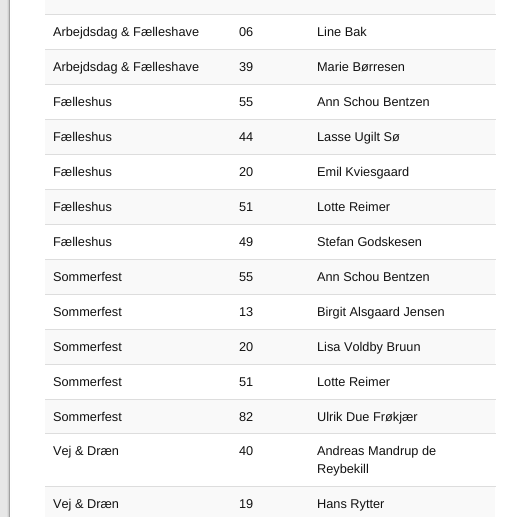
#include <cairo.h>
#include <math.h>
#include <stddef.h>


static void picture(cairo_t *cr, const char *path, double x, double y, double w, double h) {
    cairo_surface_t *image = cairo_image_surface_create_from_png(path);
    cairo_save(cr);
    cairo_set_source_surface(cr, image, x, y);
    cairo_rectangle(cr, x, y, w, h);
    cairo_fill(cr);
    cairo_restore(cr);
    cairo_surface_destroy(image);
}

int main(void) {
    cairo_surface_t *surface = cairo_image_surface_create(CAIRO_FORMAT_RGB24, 519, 517);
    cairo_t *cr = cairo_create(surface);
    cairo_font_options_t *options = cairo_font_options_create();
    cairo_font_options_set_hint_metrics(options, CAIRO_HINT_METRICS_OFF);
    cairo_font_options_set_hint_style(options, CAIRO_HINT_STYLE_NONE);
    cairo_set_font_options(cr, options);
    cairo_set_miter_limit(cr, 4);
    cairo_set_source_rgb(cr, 0.906, 0.906, 0.906);
    cairo_paint(cr);
    picture(cr, "img1.png", 7, 0, 512, 517);
    cairo_set_source_rgb(cr, 0.976, 0.976, 0.976);
    cairo_rectangle(cr, 45, 0, 450, 14);
    cairo_fill(cr);
    cairo_select_font_face(cr, "Liberation Sans", CAIRO_FONT_SLANT_NORMAL, CAIRO_FONT_WEIGHT_NORMAL);
    cairo_set_font_size(cr, 12.75);
    cairo_set_source_rgb(cr, 0.067, 0.067, 0.067);
    cairo_move_to(cr, 53, 36);
    cairo_show_text(cr, "Arbejdsdag & Fælleshave");
    cairo_move_to(cr, 239, 36);
    cairo_show_text(cr, "06");
    cairo_set_source_rgb(cr, 0.867, 0.867, 0.867);
    cairo_rectangle(cr, 45, 14, 451, 1);
    cairo_fill(cr);
    cairo_set_source_rgb(cr, 0.067, 0.067, 0.067);
    cairo_move_to(cr, 317, 36);
    cairo_show_text(cr, "Line Bak");
    cairo_set_source_rgb(cr, 0.976, 0.976, 0.976);
    cairo_rectangle(cr, 45, 50, 450, 34);
    cairo_fill(cr);
    cairo_set_source_rgb(cr, 0.067, 0.067, 0.067);
    cairo_move_to(cr, 53, 71);
    cairo_show_text(cr, "Arbejdsdag & Fælleshave");
    cairo_move_to(cr, 239, 71);
    cairo_show_text(cr, "39");
    cairo_set_source_rgb(cr, 0.867, 0.867, 0.867);
    cairo_rectangle(cr, 45, 49, 451, 1);
    cairo_fill(cr);
    cairo_set_source_rgb(cr, 0.067, 0.067, 0.067);
    cairo_move_to(cr, 317, 71);
    cairo_show_text(cr, "Marie Børresen");
    cairo_move_to(cr, 53, 106);
    cairo_show_text(cr, "Fælleshus");
    cairo_move_to(cr, 239, 106);
    cairo_show_text(cr, "55");
    cairo_set_source_rgb(cr, 0.867, 0.867, 0.867);
    cairo_rectangle(cr, 45, 84, 451, 1);
    cairo_fill(cr);
    cairo_set_source_rgb(cr, 0.067, 0.067, 0.067);
    cairo_move_to(cr, 317, 106);
    cairo_show_text(cr, "Ann Schou Bentzen");
    cairo_set_source_rgb(cr, 0.976, 0.976, 0.976);
    cairo_rectangle(cr, 45, 120, 450, 34);
    cairo_fill(cr);
    cairo_set_source_rgb(cr, 0.067, 0.067, 0.067);
    cairo_move_to(cr, 53, 141);
    cairo_show_text(cr, "Fælleshus");
    cairo_move_to(cr, 239, 141);
    cairo_show_text(cr, "44");
    cairo_set_source_rgb(cr, 0.867, 0.867, 0.867);
    cairo_rectangle(cr, 45, 119, 451, 1);
    cairo_fill(cr);
    cairo_set_source_rgb(cr, 0.067, 0.067, 0.067);
    cairo_move_to(cr, 317, 141);
    cairo_show_text(cr, "Lasse Ugilt Sø");
    cairo_move_to(cr, 53, 176);
    cairo_show_text(cr, "Fælleshus");
    cairo_move_to(cr, 239, 176);
    cairo_show_text(cr, "20");
    cairo_set_source_rgb(cr, 0.867, 0.867, 0.867);
    cairo_rectangle(cr, 45, 154, 451, 1);
    cairo_fill(cr);
    cairo_set_source_rgb(cr, 0.067, 0.067, 0.067);
    cairo_move_to(cr, 317, 176);
    cairo_show_text(cr, "Emil Kviesgaard");
    cairo_set_source_rgb(cr, 0.976, 0.976, 0.976);
    cairo_rectangle(cr, 45, 190, 450, 34);
    cairo_fill(cr);
    cairo_set_source_rgb(cr, 0.067, 0.067, 0.067);
    cairo_move_to(cr, 53, 211);
    cairo_show_text(cr, "Fælleshus");
    cairo_move_to(cr, 239, 211);
    cairo_show_text(cr, "51");
    cairo_set_source_rgb(cr, 0.867, 0.867, 0.867);
    cairo_rectangle(cr, 45, 189, 451, 1);
    cairo_fill(cr);
    cairo_set_source_rgb(cr, 0.067, 0.067, 0.067);
    cairo_move_to(cr, 317, 211);
    cairo_show_text(cr, "Lotte Reimer");
    cairo_move_to(cr, 53, 246);
    cairo_show_text(cr, "Fælleshus");
    cairo_move_to(cr, 239, 246);
    cairo_show_text(cr, "49");
    cairo_set_source_rgb(cr, 0.867, 0.867, 0.867);
    cairo_rectangle(cr, 45, 224, 451, 1);
    cairo_fill(cr);
    cairo_set_source_rgb(cr, 0.067, 0.067, 0.067);
    cairo_move_to(cr, 317, 246);
    cairo_show_text(cr, "Stefan Godskesen");
    cairo_set_source_rgb(cr, 0.976, 0.976, 0.976);
    cairo_rectangle(cr, 45, 260, 450, 34);
    cairo_fill(cr);
    cairo_set_source_rgb(cr, 0.067, 0.067, 0.067);
    cairo_move_to(cr, 53, 281);
    cairo_show_text(cr, "Sommerfest");
    cairo_move_to(cr, 239, 281);
    cairo_show_text(cr, "55");
    cairo_set_source_rgb(cr, 0.867, 0.867, 0.867);
    cairo_rectangle(cr, 45, 259, 451, 1);
    cairo_fill(cr);
    cairo_set_source_rgb(cr, 0.067, 0.067, 0.067);
    cairo_move_to(cr, 317, 281);
    cairo_show_text(cr, "Ann Schou Bentzen");
    cairo_move_to(cr, 53, 316);
    cairo_show_text(cr, "Sommerfest");
    cairo_move_to(cr, 239, 316);
    cairo_show_text(cr, "13");
    cairo_set_source_rgb(cr, 0.867, 0.867, 0.867);
    cairo_rectangle(cr, 45, 294, 451, 1);
    cairo_fill(cr);
    cairo_set_source_rgb(cr, 0.067, 0.067, 0.067);
    cairo_move_to(cr, 317, 316);
    cairo_show_text(cr, "Birgit Alsgaard Jensen");
    cairo_set_source_rgb(cr, 0.976, 0.976, 0.976);
    cairo_rectangle(cr, 45, 330, 450, 34);
    cairo_fill(cr);
    cairo_set_source_rgb(cr, 0.067, 0.067, 0.067);
    cairo_move_to(cr, 53, 351);
    cairo_show_text(cr, "Sommerfest");
    cairo_move_to(cr, 239, 351);
    cairo_show_text(cr, "20");
    cairo_set_source_rgb(cr, 0.867, 0.867, 0.867);
    cairo_rectangle(cr, 45, 329, 451, 1);
    cairo_fill(cr);
    cairo_set_source_rgb(cr, 0.067, 0.067, 0.067);
    cairo_move_to(cr, 317, 351);
    cairo_show_text(cr, "Lisa Voldby Bruun");
    cairo_move_to(cr, 53, 386);
    cairo_show_text(cr, "Sommerfest");
    cairo_move_to(cr, 239, 386);
    cairo_show_text(cr, "51");
    cairo_set_source_rgb(cr, 0.867, 0.867, 0.867);
    cairo_rectangle(cr, 45, 364, 451, 1);
    cairo_fill(cr);
    cairo_set_source_rgb(cr, 0.067, 0.067, 0.067);
    cairo_move_to(cr, 317, 386);
    cairo_show_text(cr, "Lotte Reimer");
    cairo_set_source_rgb(cr, 0.976, 0.976, 0.976);
    cairo_rectangle(cr, 45, 400, 450, 33);
    cairo_fill(cr);
    cairo_set_source_rgb(cr, 0.067, 0.067, 0.067);
    cairo_move_to(cr, 53, 421);
    cairo_show_text(cr, "Sommerfest");
    cairo_move_to(cr, 239, 421);
    cairo_show_text(cr, "82");
    cairo_set_source_rgb(cr, 0.867, 0.867, 0.867);
    cairo_rectangle(cr, 45, 399, 451, 1);
    cairo_fill(cr);
    cairo_set_source_rgb(cr, 0.067, 0.067, 0.067);
    cairo_move_to(cr, 317, 421);
    cairo_show_text(cr, "Ulrik Due Frøkjær");
    cairo_move_to(cr, 53, 455);
    cairo_show_text(cr, "Vej & Dræn");
    cairo_move_to(cr, 239, 455);
    cairo_show_text(cr, "40");
    cairo_set_source_rgb(cr, 0.867, 0.867, 0.867);
    cairo_rectangle(cr, 45, 433, 451, 1);
    cairo_fill(cr);
    cairo_set_source_rgb(cr, 0.067, 0.067, 0.067);
    cairo_move_to(cr, 317, 455);
    cairo_show_text(cr, "Andreas Mandrup de");
    cairo_move_to(cr, 317, 473);
    cairo_show_text(cr, "Reybekill");
    cairo_set_source_rgb(cr, 0.976, 0.976, 0.976);
    cairo_rectangle(cr, 45, 487, 450, 30);
    cairo_fill(cr);
    cairo_set_source_rgb(cr, 0.067, 0.067, 0.067);
    cairo_move_to(cr, 53, 508);
    cairo_show_text(cr, "Vej & Dræn");
    cairo_move_to(cr, 239, 508);
    cairo_show_text(cr, "19");
    cairo_set_source_rgb(cr, 0.867, 0.867, 0.867);
    cairo_rectangle(cr, 45, 486, 451, 1);
    cairo_fill(cr);
    cairo_set_source_rgb(cr, 0.067, 0.067, 0.067);
    cairo_move_to(cr, 317, 508);
    cairo_show_text(cr, "Hans Rytter");
    cairo_surface_write_to_png(surface, "page.png");
    cairo_font_options_destroy(options);
    cairo_destroy(cr);
    cairo_surface_destroy(surface);
    return 0;
}
